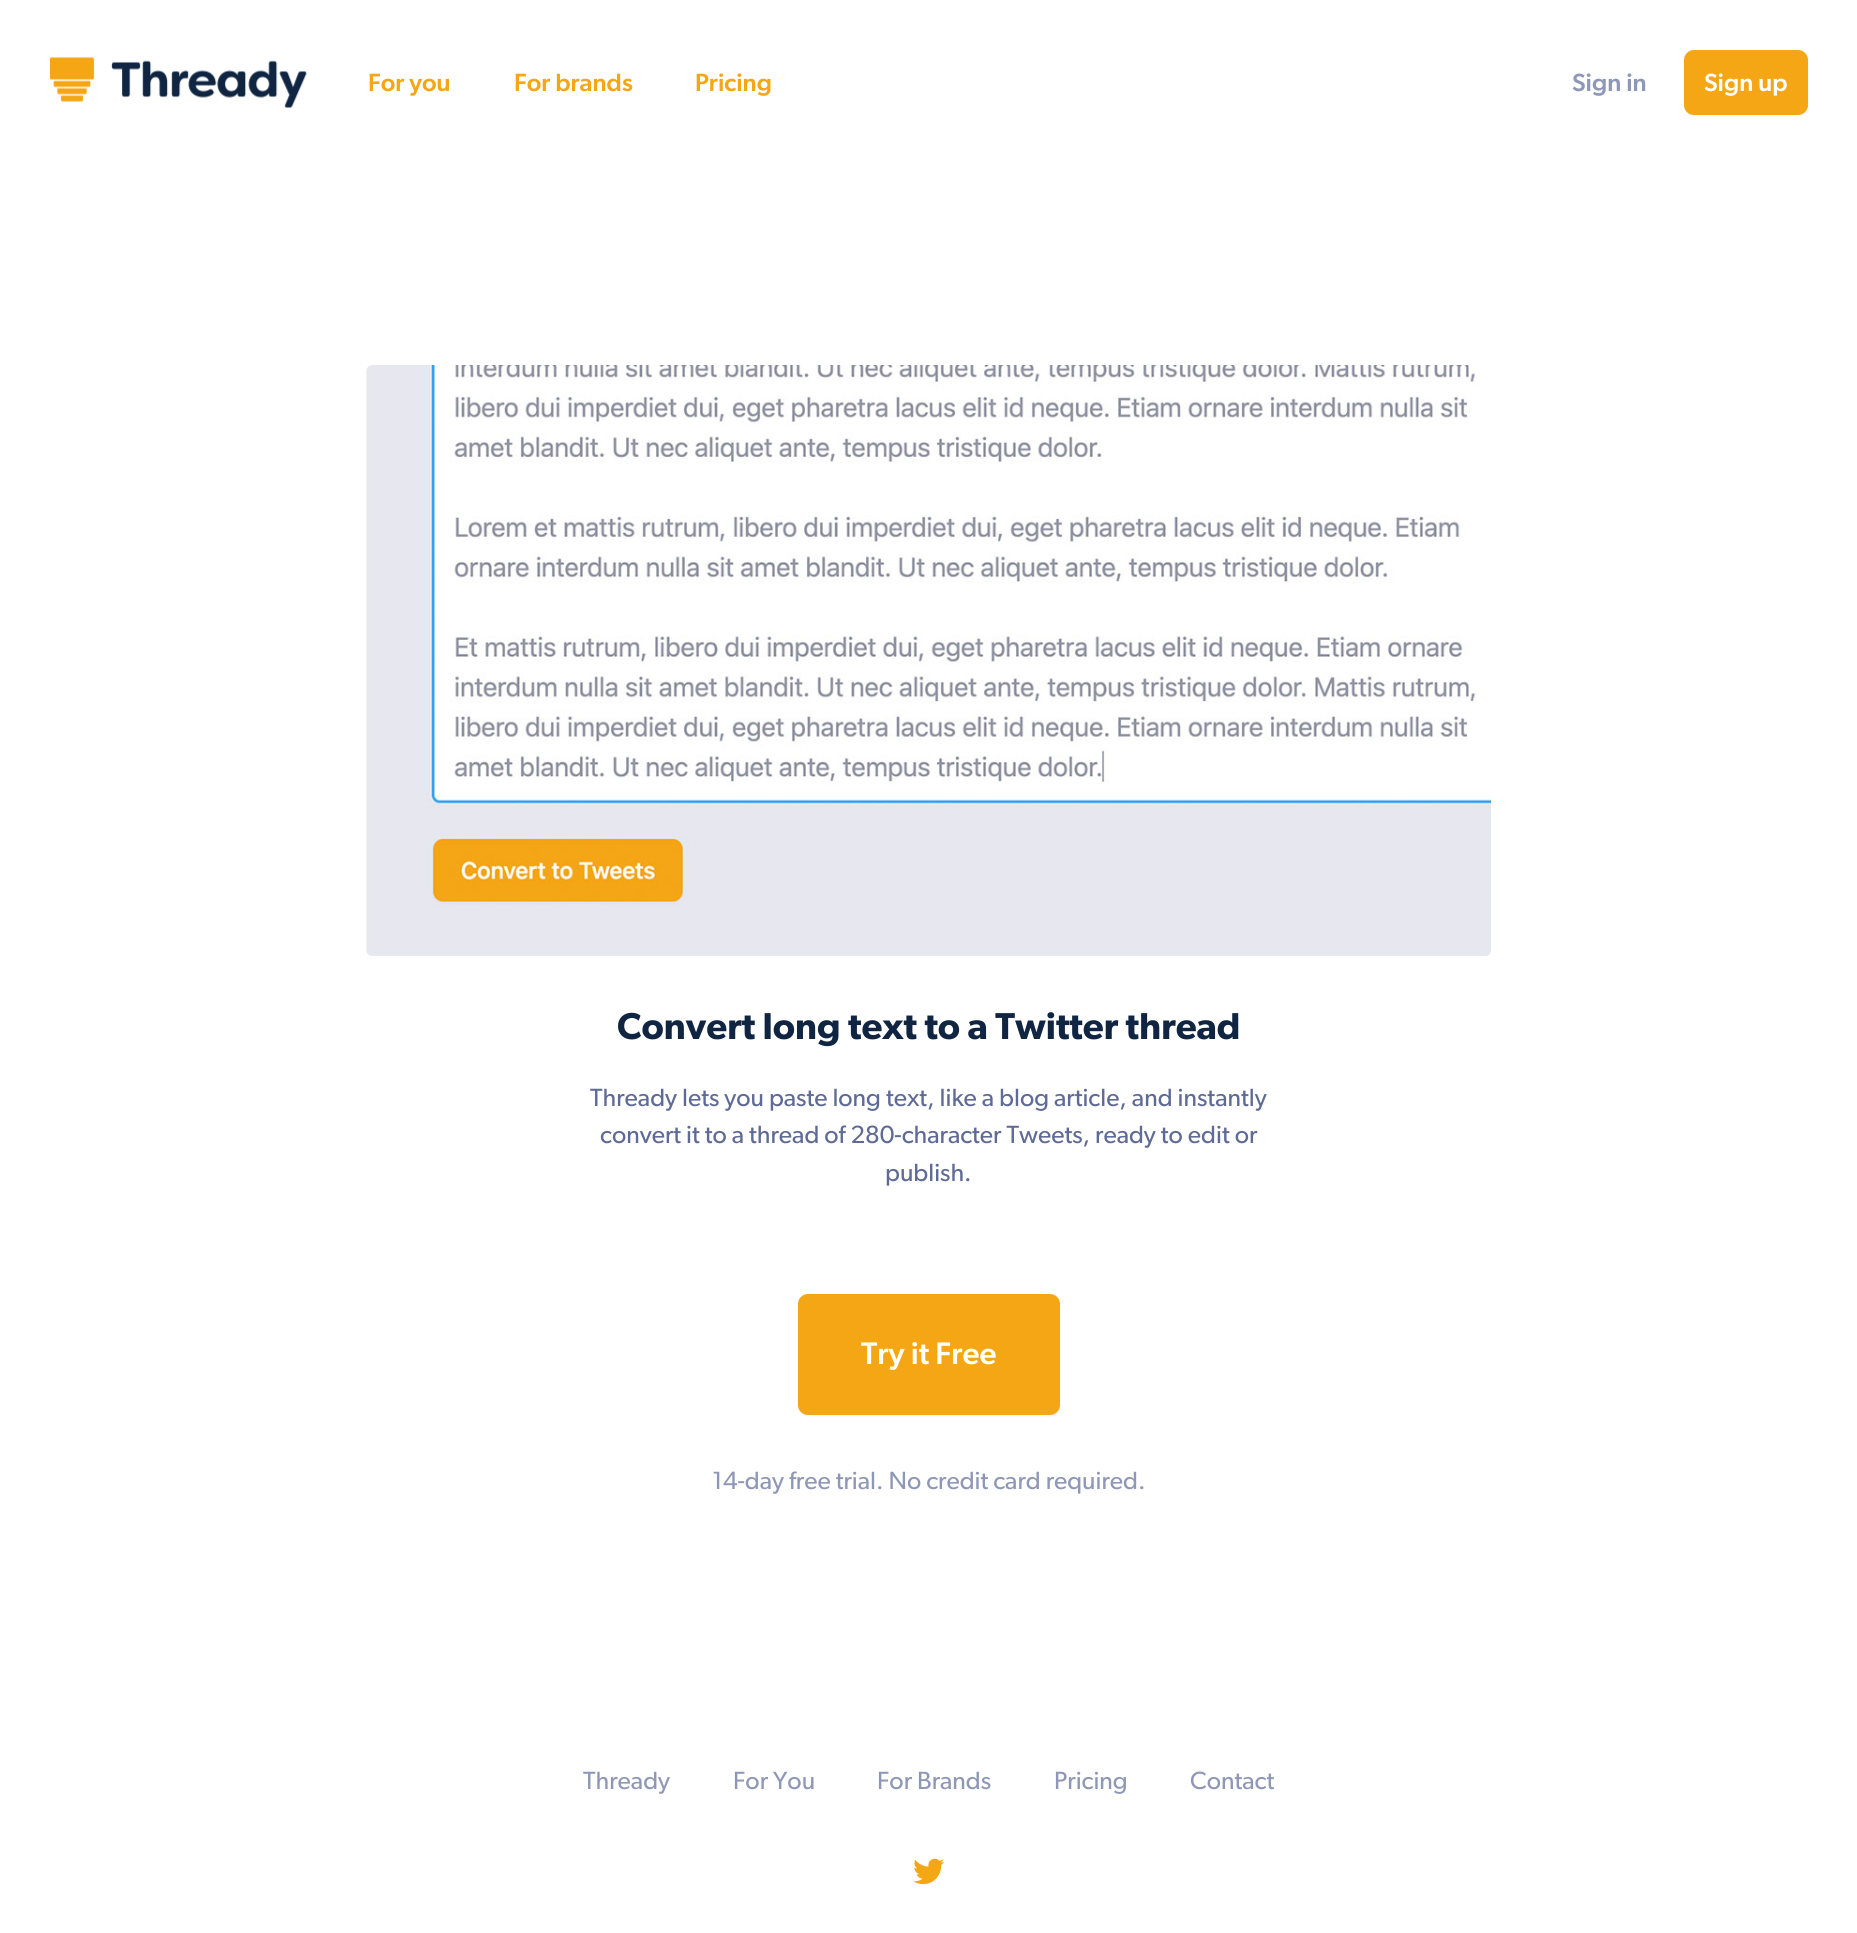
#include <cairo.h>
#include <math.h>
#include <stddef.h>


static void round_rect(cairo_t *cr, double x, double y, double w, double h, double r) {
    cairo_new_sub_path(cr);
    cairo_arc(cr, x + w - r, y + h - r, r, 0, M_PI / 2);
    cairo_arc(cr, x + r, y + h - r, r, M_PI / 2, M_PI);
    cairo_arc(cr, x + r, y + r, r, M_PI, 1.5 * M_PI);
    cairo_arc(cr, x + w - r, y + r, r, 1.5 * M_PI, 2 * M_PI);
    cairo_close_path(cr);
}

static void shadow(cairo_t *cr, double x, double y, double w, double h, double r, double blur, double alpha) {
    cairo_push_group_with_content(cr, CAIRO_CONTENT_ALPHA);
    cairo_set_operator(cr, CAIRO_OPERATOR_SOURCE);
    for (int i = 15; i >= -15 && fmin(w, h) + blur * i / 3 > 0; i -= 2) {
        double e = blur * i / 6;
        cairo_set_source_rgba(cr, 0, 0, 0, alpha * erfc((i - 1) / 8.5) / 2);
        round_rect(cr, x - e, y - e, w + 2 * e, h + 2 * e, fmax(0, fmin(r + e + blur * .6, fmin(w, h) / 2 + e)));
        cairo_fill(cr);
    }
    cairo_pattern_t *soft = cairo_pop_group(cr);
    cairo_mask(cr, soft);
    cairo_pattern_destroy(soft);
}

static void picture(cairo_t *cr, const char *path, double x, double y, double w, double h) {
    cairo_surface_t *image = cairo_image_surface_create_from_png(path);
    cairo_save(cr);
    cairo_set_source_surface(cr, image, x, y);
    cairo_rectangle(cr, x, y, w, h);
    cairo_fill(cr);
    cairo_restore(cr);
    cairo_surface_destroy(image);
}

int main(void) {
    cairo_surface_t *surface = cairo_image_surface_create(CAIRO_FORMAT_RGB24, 1857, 1933);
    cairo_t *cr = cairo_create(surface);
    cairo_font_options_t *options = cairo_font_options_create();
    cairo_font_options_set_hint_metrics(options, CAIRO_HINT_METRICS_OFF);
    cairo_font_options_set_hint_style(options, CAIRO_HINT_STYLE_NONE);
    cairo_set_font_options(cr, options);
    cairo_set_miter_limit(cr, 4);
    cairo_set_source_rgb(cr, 1, 1, 1);
    cairo_paint(cr);
    picture(cr, "img1.png", 50, 57, 257, 51);
    cairo_select_font_face(cr, "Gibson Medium", CAIRO_FONT_SLANT_NORMAL, CAIRO_FONT_WEIGHT_NORMAL);
    cairo_set_font_size(cr, 25);
    cairo_set_source_rgb(cr, 0.957, 0.651, 0.082);
    cairo_move_to(cr, 368, 91);
    cairo_show_text(cr, "For you");
    cairo_move_to(cr, 514, 91);
    cairo_show_text(cr, "For brands");
    cairo_move_to(cr, 695, 91);
    cairo_show_text(cr, "Pricing");
    cairo_set_source_rgb(cr, 0.561, 0.592, 0.718);
    cairo_move_to(cr, 1572, 91);
    cairo_show_text(cr, "Sign in");
    cairo_set_source_rgb(cr, 0, 0, 0);
    shadow(cr, 1684, 51, 124, 65, 10, 1, 0.05);
    cairo_set_source_rgb(cr, 0.957, 0.651, 0.082);
    round_rect(cr, 1684, 50, 124, 65, 10);
    cairo_fill(cr);
    cairo_set_source_rgb(cr, 1, 1, 1);
    cairo_move_to(cr, 1704, 91);
    cairo_show_text(cr, "Sign up");
    picture(cr, "img2.png", 366, 365, 1126, 591);
    cairo_select_font_face(cr, "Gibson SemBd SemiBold", CAIRO_FONT_SLANT_NORMAL, CAIRO_FONT_WEIGHT_NORMAL);
    cairo_set_font_size(cr, 37.5);
    cairo_set_source_rgb(cr, 0.063, 0.145, 0.259);
    cairo_move_to(cr, 617, 1039);
    cairo_show_text(cr, "Convert long text to a Twitter thread");
    cairo_select_font_face(cr, "Gibson", CAIRO_FONT_SLANT_NORMAL, CAIRO_FONT_WEIGHT_NORMAL);
    cairo_set_font_size(cr, 25);
    cairo_set_source_rgb(cr, 0.373, 0.416, 0.584);
    cairo_move_to(cr, 590, 1106);
    cairo_show_text(cr, "Thready lets you paste long text, like a blog article, and instantly");
    cairo_move_to(cr, 600, 1143);
    cairo_show_text(cr, "convert it to a thread of 280-character Tweets, ready to edit or");
    cairo_move_to(cr, 885, 1181);
    cairo_show_text(cr, "publish.");
    cairo_set_source_rgb(cr, 0, 0, 0);
    shadow(cr, 798, 1295, 262, 121, 10, 1, 0.05);
    cairo_set_source_rgb(cr, 0.957, 0.651, 0.082);
    round_rect(cr, 798, 1294, 262, 121, 10);
    cairo_fill(cr);
    cairo_select_font_face(cr, "Gibson Medium", CAIRO_FONT_SLANT_NORMAL, CAIRO_FONT_WEIGHT_NORMAL);
    cairo_set_font_size(cr, 31.25);
    cairo_set_source_rgb(cr, 1, 1, 1);
    cairo_move_to(cr, 861, 1364);
    cairo_show_text(cr, "Try it Free");
    cairo_select_font_face(cr, "Gibson", CAIRO_FONT_SLANT_NORMAL, CAIRO_FONT_WEIGHT_NORMAL);
    cairo_set_font_size(cr, 25);
    cairo_set_source_rgb(cr, 0.561, 0.592, 0.718);
    cairo_move_to(cr, 712, 1489);
    cairo_show_text(cr, "14-day free trial. No credit card required.");
    cairo_move_to(cr, 583, 1789);
    cairo_show_text(cr, "Thready");
    cairo_move_to(cr, 733, 1789);
    cairo_show_text(cr, "For You");
    cairo_move_to(cr, 877, 1789);
    cairo_show_text(cr, "For Brands");
    cairo_move_to(cr, 1054, 1789);
    cairo_show_text(cr, "Pricing");
    cairo_move_to(cr, 1190, 1789);
    cairo_show_text(cr, "Contact");
    picture(cr, "img3.png", 913, 1858, 32, 27);
    cairo_surface_write_to_png(surface, "page.png");
    cairo_font_options_destroy(options);
    cairo_destroy(cr);
    cairo_surface_destroy(surface);
    return 0;
}
